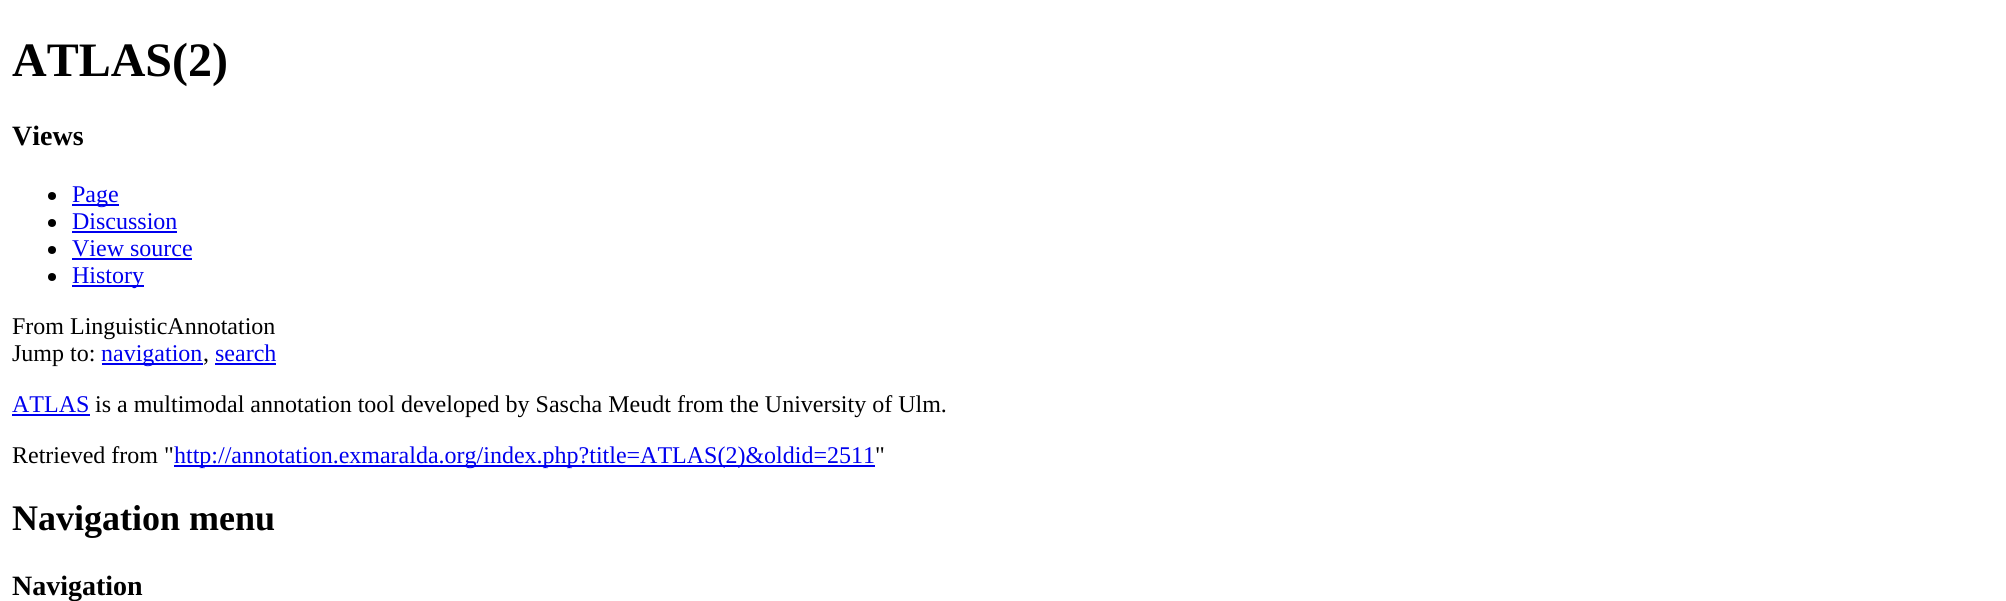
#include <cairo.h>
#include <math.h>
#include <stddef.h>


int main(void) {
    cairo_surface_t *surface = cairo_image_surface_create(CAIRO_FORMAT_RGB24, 2006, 601);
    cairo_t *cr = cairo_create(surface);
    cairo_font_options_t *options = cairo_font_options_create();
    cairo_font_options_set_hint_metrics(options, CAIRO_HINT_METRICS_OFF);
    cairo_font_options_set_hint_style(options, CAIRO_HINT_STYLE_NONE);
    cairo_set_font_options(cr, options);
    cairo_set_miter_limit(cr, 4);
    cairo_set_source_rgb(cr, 1, 1, 1);
    cairo_paint(cr);
    cairo_select_font_face(cr, "Liberation Serif", CAIRO_FONT_SLANT_NORMAL, CAIRO_FONT_WEIGHT_BOLD);
    cairo_set_font_size(cr, 48);
    cairo_set_source_rgb(cr, 0, 0, 0);
    cairo_move_to(cr, 12, 76);
    cairo_show_text(cr, "ATLAS(2)");
    cairo_set_font_size(cr, 28);
    cairo_move_to(cr, 12, 145);
    cairo_show_text(cr, "Views");
    cairo_new_path(cr);
    cairo_arc(cr, 52, 196, 4, 0, 2 * M_PI);
    cairo_fill(cr);
    cairo_set_source_rgb(cr, 0, 0, 0.933);
    cairo_rectangle(cr, 72, 204, 47, 2);
    cairo_fill(cr);
    cairo_select_font_face(cr, "Liberation Serif", CAIRO_FONT_SLANT_NORMAL, CAIRO_FONT_WEIGHT_NORMAL);
    cairo_set_font_size(cr, 24);
    cairo_move_to(cr, 72, 202);
    cairo_show_text(cr, "Page");
    cairo_set_source_rgb(cr, 0, 0, 0);
    cairo_new_path(cr);
    cairo_arc(cr, 52, 223, 4, 0, 2 * M_PI);
    cairo_fill(cr);
    cairo_set_source_rgb(cr, 0, 0, 0.933);
    cairo_move_to(cr, 72, 229);
    cairo_show_text(cr, "Discussion");
    cairo_rectangle(cr, 72, 231, 105, 2);
    cairo_fill(cr);
    cairo_set_source_rgb(cr, 0, 0, 0);
    cairo_arc(cr, 52, 250, 4, 0, 2 * M_PI);
    cairo_fill(cr);
    cairo_set_source_rgb(cr, 0, 0, 0.933);
    cairo_move_to(cr, 72, 256);
    cairo_show_text(cr, "View source");
    cairo_rectangle(cr, 72, 258, 120, 2);
    cairo_fill(cr);
    cairo_set_source_rgb(cr, 0, 0, 0);
    cairo_arc(cr, 52, 277, 4, 0, 2 * M_PI);
    cairo_fill(cr);
    cairo_set_source_rgb(cr, 0, 0, 0.933);
    cairo_rectangle(cr, 72, 285, 72, 2);
    cairo_fill(cr);
    cairo_move_to(cr, 72, 283);
    cairo_show_text(cr, "History");
    cairo_set_source_rgb(cr, 0, 0, 0);
    cairo_move_to(cr, 12, 334);
    cairo_show_text(cr, "From LinguisticAnnotation");
    cairo_move_to(cr, 12, 361);
    cairo_show_text(cr, "Jump to:");
    cairo_set_source_rgb(cr, 0, 0, 0.933);
    cairo_rectangle(cr, 102, 363, 101, 2);
    cairo_fill(cr);
    cairo_move_to(cr, 101, 361);
    cairo_show_text(cr, "navigation");
    cairo_set_source_rgb(cr, 0, 0, 0);
    cairo_move_to(cr, 203, 361);
    cairo_show_text(cr, ",");
    cairo_set_source_rgb(cr, 0, 0, 0.933);
    cairo_move_to(cr, 215, 361);
    cairo_show_text(cr, "search");
    cairo_rectangle(cr, 215, 363, 61, 2);
    cairo_fill(cr);
    cairo_move_to(cr, 12, 412);
    cairo_show_text(cr, "ATLAS");
    cairo_rectangle(cr, 12, 414, 78, 2);
    cairo_fill(cr);
    cairo_set_source_rgb(cr, 0, 0, 0);
    cairo_move_to(cr, 95, 412);
    cairo_show_text(cr, "is a multimodal annotation tool developed by Sascha Meudt from the University of Ulm.");
    cairo_move_to(cr, 12, 463);
    cairo_show_text(cr, "Retrieved from \"");
    cairo_set_source_rgb(cr, 0, 0, 0.933);
    cairo_rectangle(cr, 174, 465, 701, 2);
    cairo_fill(cr);
    cairo_move_to(cr, 174, 463);
    cairo_show_text(cr, "http://annotation.exmaralda.org/index.php?title=ATLAS(2)&oldid=2511");
    cairo_set_source_rgb(cr, 0, 0, 0);
    cairo_move_to(cr, 875, 463);
    cairo_show_text(cr, "\"");
    cairo_select_font_face(cr, "Liberation Serif", CAIRO_FONT_SLANT_NORMAL, CAIRO_FONT_WEIGHT_BOLD);
    cairo_set_font_size(cr, 36);
    cairo_move_to(cr, 12, 530);
    cairo_show_text(cr, "Navigation menu");
    cairo_set_font_size(cr, 28);
    cairo_move_to(cr, 12, 595);
    cairo_show_text(cr, "Navigation");
    cairo_surface_write_to_png(surface, "page.png");
    cairo_font_options_destroy(options);
    cairo_destroy(cr);
    cairo_surface_destroy(surface);
    return 0;
}
